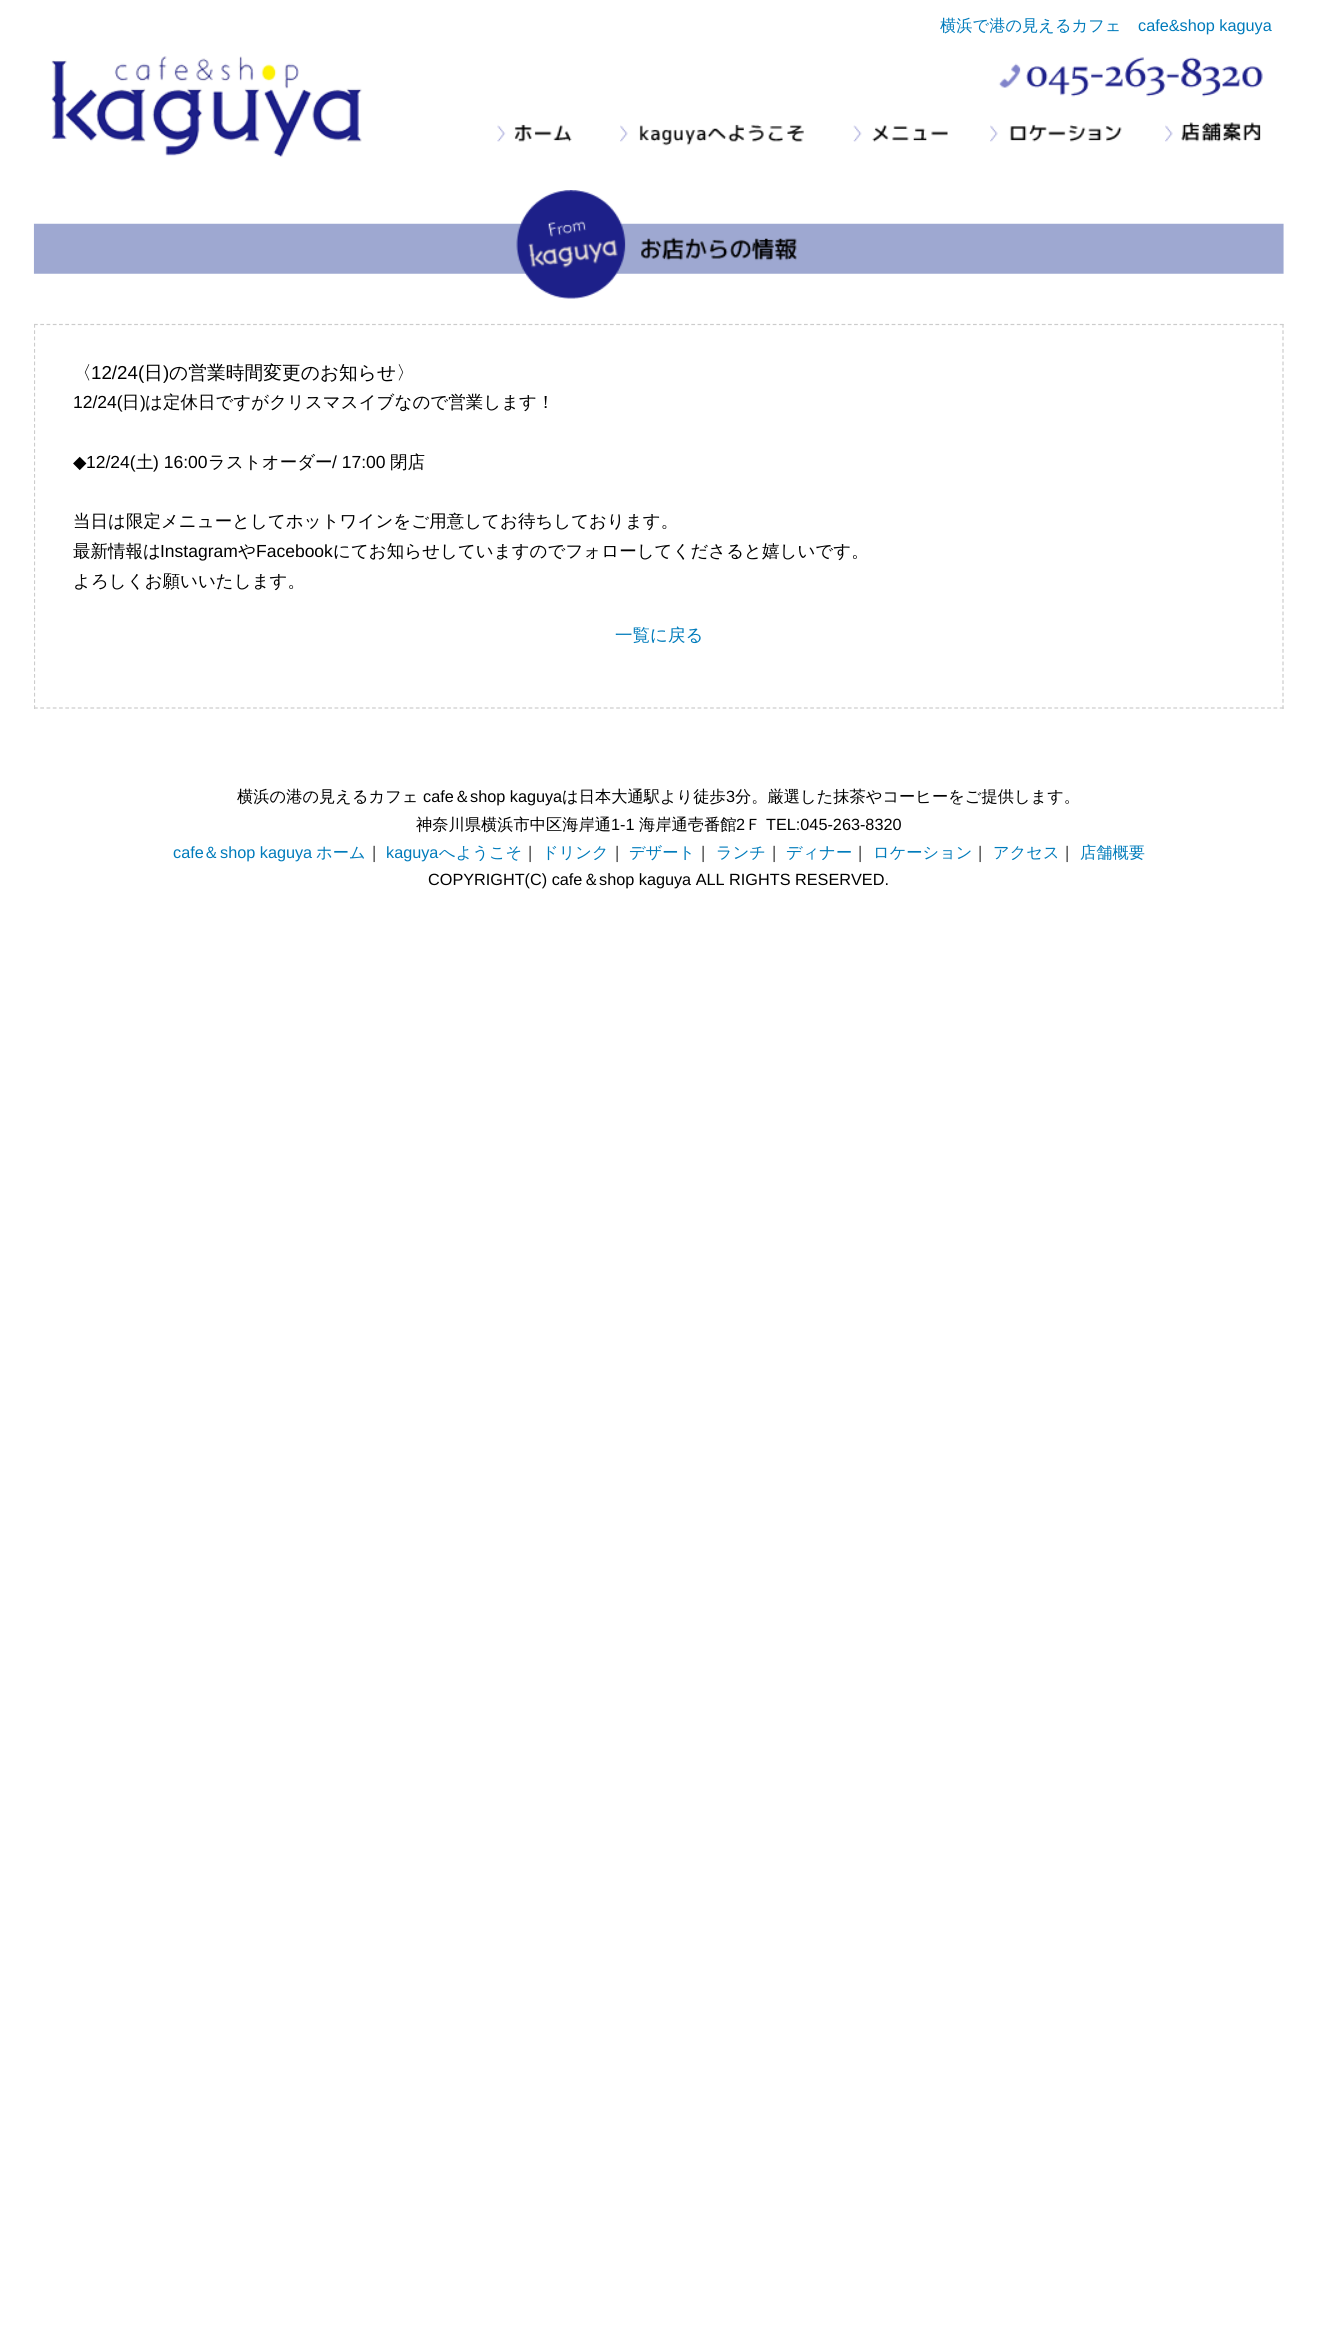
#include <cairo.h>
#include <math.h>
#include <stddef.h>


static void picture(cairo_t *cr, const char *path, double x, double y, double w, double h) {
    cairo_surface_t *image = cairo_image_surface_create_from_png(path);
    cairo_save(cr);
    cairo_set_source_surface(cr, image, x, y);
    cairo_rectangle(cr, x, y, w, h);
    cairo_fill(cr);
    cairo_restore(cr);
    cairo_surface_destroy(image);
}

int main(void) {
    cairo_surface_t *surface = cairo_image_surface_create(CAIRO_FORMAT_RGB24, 1317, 2349);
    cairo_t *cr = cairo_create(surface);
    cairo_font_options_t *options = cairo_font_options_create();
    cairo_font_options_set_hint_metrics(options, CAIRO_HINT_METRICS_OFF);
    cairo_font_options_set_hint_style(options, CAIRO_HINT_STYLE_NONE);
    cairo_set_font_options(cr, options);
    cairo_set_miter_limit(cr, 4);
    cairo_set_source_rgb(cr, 1, 1, 1);
    cairo_paint(cr);
    picture(cr, "img1.png", 51, 56, 1212, 101);
    cairo_select_font_face(cr, "WenQuanYi Zen Hei Medium", CAIRO_FONT_SLANT_NORMAL, CAIRO_FONT_WEIGHT_NORMAL);
    cairo_set_font_size(cr, 16.25);
    cairo_set_source_rgb(cr, 0, 0.482, 0.733);
    cairo_move_to(cr, 940, 31);
    cairo_show_text(cr, "横浜で港の見えるカフェ");
    cairo_select_font_face(cr, "Liberation Sans", CAIRO_FONT_SLANT_NORMAL, CAIRO_FONT_WEIGHT_NORMAL);
    cairo_move_to(cr, 1138, 31);
    cairo_show_text(cr, "cafe&shop kaguya");
    picture(cr, "img2.png", 497, 124, 75, 18);
    picture(cr, "img3.png", 620, 124, 184, 22);
    picture(cr, "img4.png", 853, 125, 95, 17);
    picture(cr, "img5.png", 990, 124, 132, 18);
    picture(cr, "img6.png", 1165, 122, 96, 20);
    picture(cr, "img7.png", 33, 190, 1251, 109);
    cairo_new_path(cr);
    cairo_move_to(cr, 34, 324.5);
    cairo_line_to(cr, 1284, 324.5);
    cairo_set_source_rgb(cr, 0.8, 0.8, 0.8);
    cairo_set_line_width(cr, 1.2);
    cairo_set_dash(cr, (double[]){3.75, 2.51}, 2, 0);
    cairo_stroke(cr);
    cairo_new_path(cr);
    cairo_move_to(cr, 1283, 324);
    cairo_line_to(cr, 1283, 709);
    cairo_set_dash(cr, (double[]){3.75, 2.5}, 2, 0);
    cairo_stroke(cr);
    cairo_new_path(cr);
    cairo_move_to(cr, 34, 708);
    cairo_line_to(cr, 1284, 708);
    cairo_set_dash(cr, (double[]){3.75, 2.51}, 2, 0);
    cairo_stroke(cr);
    cairo_save(cr);
    cairo_rectangle(cr, 34, 0, 1250, 906);
    cairo_clip(cr);
    cairo_new_path(cr);
    cairo_move_to(cr, 34.5, 324);
    cairo_line_to(cr, 34.5, 709);
    cairo_set_dash(cr, (double[]){3.75, 2.5}, 2, 0);
    cairo_stroke(cr);
    cairo_restore(cr);
    cairo_select_font_face(cr, "WenQuanYi Zen Hei Medium", CAIRO_FONT_SLANT_NORMAL, CAIRO_FONT_WEIGHT_NORMAL);
    cairo_set_font_size(cr, 18.75);
    cairo_set_source_rgb(cr, 0, 0, 0);
    cairo_move_to(cr, 73, 379);
    cairo_show_text(cr, "〈");
    cairo_select_font_face(cr, "Liberation Sans", CAIRO_FONT_SLANT_NORMAL, CAIRO_FONT_WEIGHT_NORMAL);
    cairo_move_to(cr, 91, 379);
    cairo_show_text(cr, "12/24(");
    cairo_select_font_face(cr, "WenQuanYi Zen Hei Medium", CAIRO_FONT_SLANT_NORMAL, CAIRO_FONT_WEIGHT_NORMAL);
    cairo_move_to(cr, 144, 379);
    cairo_show_text(cr, "日");
    cairo_select_font_face(cr, "Liberation Sans", CAIRO_FONT_SLANT_NORMAL, CAIRO_FONT_WEIGHT_NORMAL);
    cairo_move_to(cr, 163, 379);
    cairo_show_text(cr, ")");
    cairo_select_font_face(cr, "WenQuanYi Zen Hei Medium", CAIRO_FONT_SLANT_NORMAL, CAIRO_FONT_WEIGHT_NORMAL);
    cairo_move_to(cr, 169, 379);
    cairo_show_text(cr, "の営業時間変更のお知らせ〉");
    cairo_select_font_face(cr, "Liberation Sans", CAIRO_FONT_SLANT_NORMAL, CAIRO_FONT_WEIGHT_NORMAL);
    cairo_set_font_size(cr, 17.5);
    cairo_move_to(cr, 73, 408);
    cairo_show_text(cr, "12/24(");
    cairo_select_font_face(cr, "WenQuanYi Zen Hei Medium", CAIRO_FONT_SLANT_NORMAL, CAIRO_FONT_WEIGHT_NORMAL);
    cairo_move_to(cr, 122, 408);
    cairo_show_text(cr, "日");
    cairo_select_font_face(cr, "Liberation Sans", CAIRO_FONT_SLANT_NORMAL, CAIRO_FONT_WEIGHT_NORMAL);
    cairo_move_to(cr, 140, 408);
    cairo_show_text(cr, ")");
    cairo_select_font_face(cr, "WenQuanYi Zen Hei Medium", CAIRO_FONT_SLANT_NORMAL, CAIRO_FONT_WEIGHT_NORMAL);
    cairo_move_to(cr, 145, 408);
    cairo_show_text(cr, "は定休日ですがクリスマスイブなので営業します！");
    cairo_select_font_face(cr, "DejaVu Sans", CAIRO_FONT_SLANT_NORMAL, CAIRO_FONT_WEIGHT_NORMAL);
    cairo_move_to(cr, 73, 468);
    cairo_show_text(cr, "◆");
    cairo_select_font_face(cr, "Liberation Sans", CAIRO_FONT_SLANT_NORMAL, CAIRO_FONT_WEIGHT_NORMAL);
    cairo_move_to(cr, 86, 468);
    cairo_show_text(cr, "12/24(");
    cairo_select_font_face(cr, "WenQuanYi Zen Hei Medium", CAIRO_FONT_SLANT_NORMAL, CAIRO_FONT_WEIGHT_NORMAL);
    cairo_move_to(cr, 136, 468);
    cairo_show_text(cr, "土");
    cairo_select_font_face(cr, "Liberation Sans", CAIRO_FONT_SLANT_NORMAL, CAIRO_FONT_WEIGHT_NORMAL);
    cairo_move_to(cr, 153, 468);
    cairo_show_text(cr, ") 16:00");
    cairo_select_font_face(cr, "WenQuanYi Zen Hei Medium", CAIRO_FONT_SLANT_NORMAL, CAIRO_FONT_WEIGHT_NORMAL);
    cairo_move_to(cr, 208, 468);
    cairo_show_text(cr, "ラストオーダー");
    cairo_select_font_face(cr, "Liberation Sans", CAIRO_FONT_SLANT_NORMAL, CAIRO_FONT_WEIGHT_NORMAL);
    cairo_move_to(cr, 332, 468);
    cairo_show_text(cr, "/ 17:00");
    cairo_select_font_face(cr, "WenQuanYi Zen Hei Medium", CAIRO_FONT_SLANT_NORMAL, CAIRO_FONT_WEIGHT_NORMAL);
    cairo_move_to(cr, 390, 468);
    cairo_show_text(cr, "閉店");
    cairo_move_to(cr, 73, 527);
    cairo_show_text(cr, "当日は限定メニューとしてホットワインをご用意してお待ちしております。");
    cairo_move_to(cr, 73, 557);
    cairo_show_text(cr, "最新情報は");
    cairo_select_font_face(cr, "Liberation Sans", CAIRO_FONT_SLANT_NORMAL, CAIRO_FONT_WEIGHT_NORMAL);
    cairo_move_to(cr, 160, 557);
    cairo_show_text(cr, "Instagram");
    cairo_select_font_face(cr, "WenQuanYi Zen Hei Medium", CAIRO_FONT_SLANT_NORMAL, CAIRO_FONT_WEIGHT_NORMAL);
    cairo_move_to(cr, 238, 557);
    cairo_show_text(cr, "や");
    cairo_select_font_face(cr, "Liberation Sans", CAIRO_FONT_SLANT_NORMAL, CAIRO_FONT_WEIGHT_NORMAL);
    cairo_move_to(cr, 256, 557);
    cairo_show_text(cr, "Facebook");
    cairo_select_font_face(cr, "WenQuanYi Zen Hei Medium", CAIRO_FONT_SLANT_NORMAL, CAIRO_FONT_WEIGHT_NORMAL);
    cairo_move_to(cr, 333, 557);
    cairo_show_text(cr, "にてお知らせしていますのでフォローしてくださると嬉しいです。");
    cairo_move_to(cr, 73, 587);
    cairo_show_text(cr, "よろしくお願いいたします。");
    cairo_set_source_rgb(cr, 0, 0.482, 0.733);
    cairo_move_to(cr, 615, 641);
    cairo_show_text(cr, "一覧に戻る");
    cairo_set_font_size(cr, 16.25);
    cairo_set_source_rgb(cr, 0, 0, 0);
    cairo_move_to(cr, 237, 802);
    cairo_show_text(cr, "横浜の港の見えるカフェ");
    cairo_select_font_face(cr, "Liberation Sans", CAIRO_FONT_SLANT_NORMAL, CAIRO_FONT_WEIGHT_NORMAL);
    cairo_move_to(cr, 423, 802);
    cairo_show_text(cr, "cafe");
    cairo_select_font_face(cr, "WenQuanYi Zen Hei Medium", CAIRO_FONT_SLANT_NORMAL, CAIRO_FONT_WEIGHT_NORMAL);
    cairo_move_to(cr, 454, 802);
    cairo_show_text(cr, "＆");
    cairo_select_font_face(cr, "Liberation Sans", CAIRO_FONT_SLANT_NORMAL, CAIRO_FONT_WEIGHT_NORMAL);
    cairo_move_to(cr, 470, 802);
    cairo_show_text(cr, "shop kaguya");
    cairo_select_font_face(cr, "WenQuanYi Zen Hei Medium", CAIRO_FONT_SLANT_NORMAL, CAIRO_FONT_WEIGHT_NORMAL);
    cairo_move_to(cr, 562, 802);
    cairo_show_text(cr, "は日本大通駅より徒歩");
    cairo_select_font_face(cr, "Liberation Sans", CAIRO_FONT_SLANT_NORMAL, CAIRO_FONT_WEIGHT_NORMAL);
    cairo_move_to(cr, 726, 802);
    cairo_show_text(cr, "3");
    cairo_select_font_face(cr, "WenQuanYi Zen Hei Medium", CAIRO_FONT_SLANT_NORMAL, CAIRO_FONT_WEIGHT_NORMAL);
    cairo_move_to(cr, 735, 802);
    cairo_show_text(cr, "分。厳選した抹茶やコーヒーをご提供します。");
    cairo_move_to(cr, 416, 830);
    cairo_show_text(cr, "神奈川県横浜市中区海岸通");
    cairo_select_font_face(cr, "Liberation Sans", CAIRO_FONT_SLANT_NORMAL, CAIRO_FONT_WEIGHT_NORMAL);
    cairo_move_to(cr, 611, 830);
    cairo_show_text(cr, "1-1");
    cairo_select_font_face(cr, "WenQuanYi Zen Hei Medium", CAIRO_FONT_SLANT_NORMAL, CAIRO_FONT_WEIGHT_NORMAL);
    cairo_move_to(cr, 639, 830);
    cairo_show_text(cr, "海岸通壱番館");
    cairo_select_font_face(cr, "Liberation Sans", CAIRO_FONT_SLANT_NORMAL, CAIRO_FONT_WEIGHT_NORMAL);
    cairo_move_to(cr, 736, 830);
    cairo_show_text(cr, "2");
    cairo_select_font_face(cr, "WenQuanYi Zen Hei Medium", CAIRO_FONT_SLANT_NORMAL, CAIRO_FONT_WEIGHT_NORMAL);
    cairo_move_to(cr, 745, 830);
    cairo_show_text(cr, "Ｆ");
    cairo_select_font_face(cr, "Liberation Sans", CAIRO_FONT_SLANT_NORMAL, CAIRO_FONT_WEIGHT_NORMAL);
    cairo_move_to(cr, 766, 830);
    cairo_show_text(cr, "TEL:045-263-8320");
    cairo_set_source_rgb(cr, 0, 0.482, 0.733);
    cairo_move_to(cr, 173, 858);
    cairo_show_text(cr, "cafe");
    cairo_select_font_face(cr, "WenQuanYi Zen Hei Medium", CAIRO_FONT_SLANT_NORMAL, CAIRO_FONT_WEIGHT_NORMAL);
    cairo_move_to(cr, 203, 858);
    cairo_show_text(cr, "＆");
    cairo_select_font_face(cr, "Liberation Sans", CAIRO_FONT_SLANT_NORMAL, CAIRO_FONT_WEIGHT_NORMAL);
    cairo_move_to(cr, 220, 858);
    cairo_show_text(cr, "shop kaguya");
    cairo_select_font_face(cr, "WenQuanYi Zen Hei Medium", CAIRO_FONT_SLANT_NORMAL, CAIRO_FONT_WEIGHT_NORMAL);
    cairo_move_to(cr, 316, 858);
    cairo_show_text(cr, "ホーム");
    cairo_set_source_rgb(cr, 0, 0, 0);
    cairo_move_to(cr, 366, 858);
    cairo_show_text(cr, "｜");
    cairo_select_font_face(cr, "Liberation Sans", CAIRO_FONT_SLANT_NORMAL, CAIRO_FONT_WEIGHT_NORMAL);
    cairo_set_source_rgb(cr, 0, 0.482, 0.733);
    cairo_move_to(cr, 386, 858);
    cairo_show_text(cr, "kaguya");
    cairo_select_font_face(cr, "WenQuanYi Zen Hei Medium", CAIRO_FONT_SLANT_NORMAL, CAIRO_FONT_WEIGHT_NORMAL);
    cairo_move_to(cr, 439, 858);
    cairo_show_text(cr, "へようこそ");
    cairo_set_source_rgb(cr, 0, 0, 0);
    cairo_move_to(cr, 522, 858);
    cairo_show_text(cr, "｜");
    cairo_set_source_rgb(cr, 0, 0.482, 0.733);
    cairo_move_to(cr, 542, 858);
    cairo_show_text(cr, "ドリンク");
    cairo_set_source_rgb(cr, 0, 0, 0);
    cairo_move_to(cr, 609, 858);
    cairo_show_text(cr, "｜");
    cairo_set_source_rgb(cr, 0, 0.482, 0.733);
    cairo_move_to(cr, 629, 858);
    cairo_show_text(cr, "デザート");
    cairo_set_source_rgb(cr, 0, 0, 0);
    cairo_move_to(cr, 695, 858);
    cairo_show_text(cr, "｜");
    cairo_set_source_rgb(cr, 0, 0.482, 0.733);
    cairo_move_to(cr, 716, 858);
    cairo_show_text(cr, "ランチ");
    cairo_set_source_rgb(cr, 0, 0, 0);
    cairo_move_to(cr, 766, 858);
    cairo_show_text(cr, "｜");
    cairo_set_source_rgb(cr, 0, 0.482, 0.733);
    cairo_move_to(cr, 786, 858);
    cairo_show_text(cr, "ディナー");
    cairo_set_source_rgb(cr, 0, 0, 0);
    cairo_move_to(cr, 852, 858);
    cairo_show_text(cr, "｜");
    cairo_set_source_rgb(cr, 0, 0.482, 0.733);
    cairo_move_to(cr, 873, 858);
    cairo_show_text(cr, "ロケーション");
    cairo_set_source_rgb(cr, 0, 0, 0);
    cairo_move_to(cr, 972, 858);
    cairo_show_text(cr, "｜");
    cairo_set_source_rgb(cr, 0, 0.482, 0.733);
    cairo_move_to(cr, 993, 858);
    cairo_show_text(cr, "アクセス");
    cairo_set_source_rgb(cr, 0, 0, 0);
    cairo_move_to(cr, 1059, 858);
    cairo_show_text(cr, "｜");
    cairo_set_source_rgb(cr, 0, 0.482, 0.733);
    cairo_move_to(cr, 1080, 858);
    cairo_show_text(cr, "店舗概要");
    cairo_select_font_face(cr, "Liberation Sans", CAIRO_FONT_SLANT_NORMAL, CAIRO_FONT_WEIGHT_NORMAL);
    cairo_set_source_rgb(cr, 0, 0, 0);
    cairo_move_to(cr, 428, 885);
    cairo_show_text(cr, "COPYRIGHT(C) cafe");
    cairo_select_font_face(cr, "WenQuanYi Zen Hei Medium", CAIRO_FONT_SLANT_NORMAL, CAIRO_FONT_WEIGHT_NORMAL);
    cairo_move_to(cr, 583, 885);
    cairo_show_text(cr, "＆");
    cairo_select_font_face(cr, "Liberation Sans", CAIRO_FONT_SLANT_NORMAL, CAIRO_FONT_WEIGHT_NORMAL);
    cairo_move_to(cr, 599, 885);
    cairo_show_text(cr, "shop kaguya ALL RIGHTS RESERVED.");
    cairo_surface_write_to_png(surface, "page.png");
    cairo_font_options_destroy(options);
    cairo_destroy(cr);
    cairo_surface_destroy(surface);
    return 0;
}
